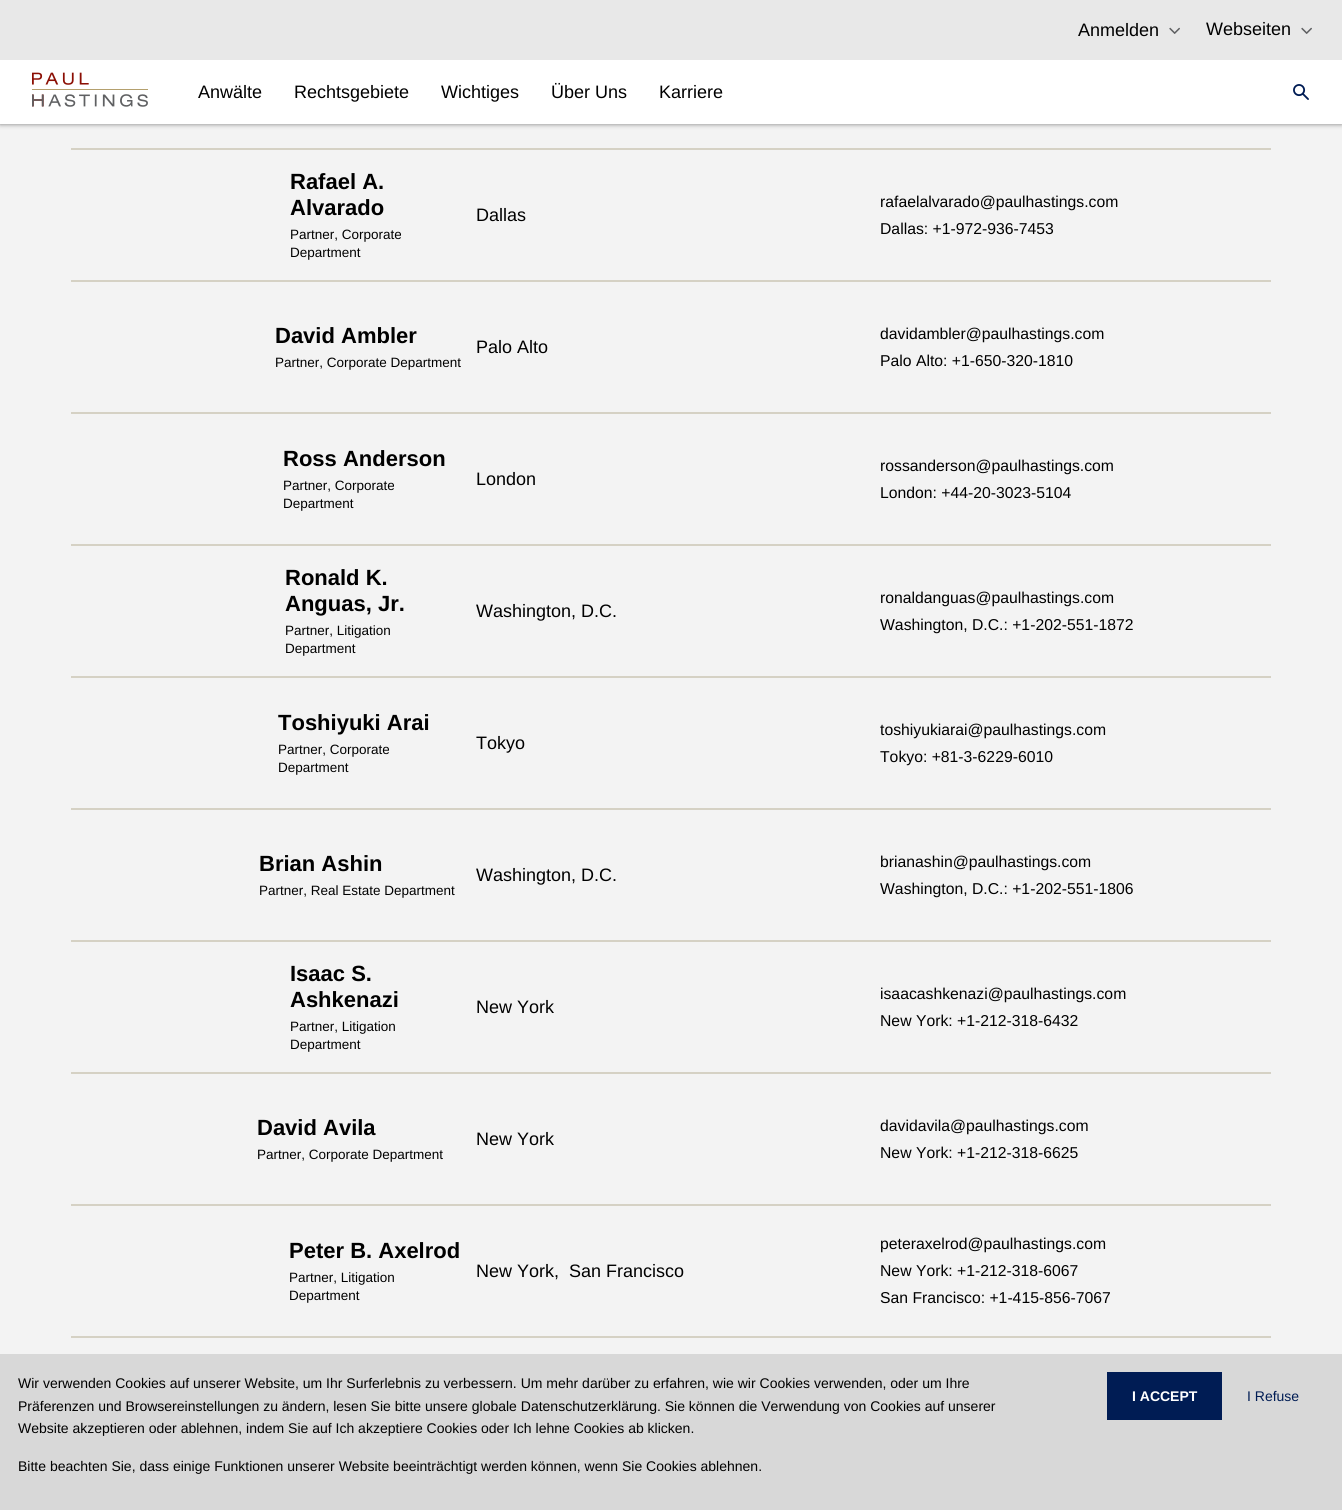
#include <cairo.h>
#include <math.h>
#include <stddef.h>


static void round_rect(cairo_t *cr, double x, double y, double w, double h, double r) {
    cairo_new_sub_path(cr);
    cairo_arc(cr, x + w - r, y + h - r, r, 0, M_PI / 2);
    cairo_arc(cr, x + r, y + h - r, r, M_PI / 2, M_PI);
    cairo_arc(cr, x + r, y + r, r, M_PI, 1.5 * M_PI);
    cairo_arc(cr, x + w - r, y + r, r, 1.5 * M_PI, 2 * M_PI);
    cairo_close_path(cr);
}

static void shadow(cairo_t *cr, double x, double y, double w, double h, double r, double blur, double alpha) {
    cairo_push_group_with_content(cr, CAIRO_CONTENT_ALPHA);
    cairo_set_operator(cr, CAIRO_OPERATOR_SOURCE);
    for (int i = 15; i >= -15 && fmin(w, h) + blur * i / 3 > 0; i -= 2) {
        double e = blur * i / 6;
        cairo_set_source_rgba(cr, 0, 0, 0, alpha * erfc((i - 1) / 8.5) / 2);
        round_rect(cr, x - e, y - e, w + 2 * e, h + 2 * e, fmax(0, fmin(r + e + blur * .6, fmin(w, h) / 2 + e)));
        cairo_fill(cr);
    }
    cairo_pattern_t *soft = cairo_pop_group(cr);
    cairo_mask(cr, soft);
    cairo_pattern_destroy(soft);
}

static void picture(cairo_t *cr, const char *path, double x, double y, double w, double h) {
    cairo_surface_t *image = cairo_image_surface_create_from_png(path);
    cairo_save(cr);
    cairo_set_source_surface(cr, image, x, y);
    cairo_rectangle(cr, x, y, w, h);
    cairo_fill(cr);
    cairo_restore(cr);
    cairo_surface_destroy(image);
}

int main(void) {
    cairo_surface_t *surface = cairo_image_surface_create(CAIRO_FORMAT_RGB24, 1342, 1510);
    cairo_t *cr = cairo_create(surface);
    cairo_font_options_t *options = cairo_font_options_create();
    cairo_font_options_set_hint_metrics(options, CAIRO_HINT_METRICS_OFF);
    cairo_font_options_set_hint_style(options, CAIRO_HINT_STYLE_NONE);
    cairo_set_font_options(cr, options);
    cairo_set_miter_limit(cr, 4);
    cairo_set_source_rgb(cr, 0.953, 0.953, 0.953);
    cairo_paint(cr);
    cairo_set_source_rgb(cr, 0, 0, 0);
    shadow(cr, 0, 0, 1342, 124, 0, 2.5, 0.5);
    cairo_set_source_rgb(cr, 1, 1, 1);
    cairo_rectangle(cr, 0, 60, 1342, 64);
    cairo_fill(cr);
    cairo_set_source_rgb(cr, 0.91, 0.91, 0.91);
    cairo_rectangle(cr, 0, 0, 1342, 60);
    cairo_fill(cr);
    cairo_select_font_face(cr, "Liberation Sans", CAIRO_FONT_SLANT_NORMAL, CAIRO_FONT_WEIGHT_NORMAL);
    cairo_set_font_size(cr, 18);
    cairo_set_source_rgb(cr, 0, 0, 0);
    cairo_move_to(cr, 1078, 36);
    cairo_show_text(cr, "Anmelden");
    picture(cr, "img1.png", 1169, 27, 11, 7);
    cairo_move_to(cr, 1206, 35);
    cairo_show_text(cr, "Webseiten");
    picture(cr, "img1.png", 1301, 27, 11, 7);
    picture(cr, "img2.png", 32, 72, 116, 35);
    cairo_move_to(cr, 198, 98);
    cairo_show_text(cr, "Anwälte");
    cairo_move_to(cr, 294, 98);
    cairo_show_text(cr, "Rechtsgebiete");
    cairo_move_to(cr, 441, 98);
    cairo_show_text(cr, "Wichtiges");
    cairo_move_to(cr, 551, 98);
    cairo_show_text(cr, "Über Uns");
    cairo_move_to(cr, 659, 98);
    cairo_show_text(cr, "Karriere");
    picture(cr, "img3.png", 1293, 84, 16, 16);
    cairo_set_source_rgb(cr, 0.835, 0.82, 0.769);
    cairo_rectangle(cr, 71, 148, 1200, 2);
    cairo_fill(cr);
    cairo_select_font_face(cr, "Liberation Sans", CAIRO_FONT_SLANT_NORMAL, CAIRO_FONT_WEIGHT_BOLD);
    cairo_set_font_size(cr, 22);
    cairo_set_source_rgb(cr, 0, 0, 0);
    cairo_move_to(cr, 290, 189);
    cairo_show_text(cr, "Rafael A.");
    cairo_move_to(cr, 290, 215);
    cairo_show_text(cr, "Alvarado");
    cairo_select_font_face(cr, "Liberation Sans", CAIRO_FONT_SLANT_NORMAL, CAIRO_FONT_WEIGHT_NORMAL);
    cairo_set_font_size(cr, 13.5);
    cairo_move_to(cr, 290, 239);
    cairo_show_text(cr, "Partner, Corporate");
    cairo_move_to(cr, 290, 257);
    cairo_show_text(cr, "Department");
    cairo_set_font_size(cr, 18);
    cairo_move_to(cr, 476, 221);
    cairo_show_text(cr, "Dallas");
    cairo_set_font_size(cr, 15.75);
    cairo_move_to(cr, 880, 207);
    cairo_show_text(cr, "rafaelalvarado@paulhastings.com");
    cairo_move_to(cr, 880, 234);
    cairo_show_text(cr, "Dallas: +1-972-936-7453");
    cairo_set_source_rgb(cr, 0.835, 0.82, 0.769);
    cairo_rectangle(cr, 71, 280, 1200, 2);
    cairo_fill(cr);
    cairo_select_font_face(cr, "Liberation Sans", CAIRO_FONT_SLANT_NORMAL, CAIRO_FONT_WEIGHT_BOLD);
    cairo_set_font_size(cr, 22);
    cairo_set_source_rgb(cr, 0, 0, 0);
    cairo_move_to(cr, 275, 343);
    cairo_show_text(cr, "David Ambler");
    cairo_select_font_face(cr, "Liberation Sans", CAIRO_FONT_SLANT_NORMAL, CAIRO_FONT_WEIGHT_NORMAL);
    cairo_set_font_size(cr, 13.5);
    cairo_move_to(cr, 275, 367);
    cairo_show_text(cr, "Partner, Corporate Department");
    cairo_set_font_size(cr, 18);
    cairo_move_to(cr, 476, 353);
    cairo_show_text(cr, "Palo Alto");
    cairo_set_font_size(cr, 15.75);
    cairo_move_to(cr, 880, 339);
    cairo_show_text(cr, "davidambler@paulhastings.com");
    cairo_move_to(cr, 880, 366);
    cairo_show_text(cr, "Palo Alto: +1-650-320-1810");
    cairo_set_source_rgb(cr, 0.835, 0.82, 0.769);
    cairo_rectangle(cr, 71, 412, 1200, 2);
    cairo_fill(cr);
    cairo_select_font_face(cr, "Liberation Sans", CAIRO_FONT_SLANT_NORMAL, CAIRO_FONT_WEIGHT_BOLD);
    cairo_set_font_size(cr, 22);
    cairo_set_source_rgb(cr, 0, 0, 0);
    cairo_move_to(cr, 283, 466);
    cairo_show_text(cr, "Ross Anderson");
    cairo_select_font_face(cr, "Liberation Sans", CAIRO_FONT_SLANT_NORMAL, CAIRO_FONT_WEIGHT_NORMAL);
    cairo_set_font_size(cr, 13.5);
    cairo_move_to(cr, 283, 490);
    cairo_show_text(cr, "Partner, Corporate");
    cairo_move_to(cr, 283, 508);
    cairo_show_text(cr, "Department");
    cairo_set_font_size(cr, 18);
    cairo_move_to(cr, 476, 485);
    cairo_show_text(cr, "London");
    cairo_set_font_size(cr, 15.75);
    cairo_move_to(cr, 880, 471);
    cairo_show_text(cr, "rossanderson@paulhastings.com");
    cairo_move_to(cr, 880, 498);
    cairo_show_text(cr, "London: +44-20-3023-5104");
    cairo_set_source_rgb(cr, 0.835, 0.82, 0.769);
    cairo_rectangle(cr, 71, 544, 1200, 2);
    cairo_fill(cr);
    cairo_select_font_face(cr, "Liberation Sans", CAIRO_FONT_SLANT_NORMAL, CAIRO_FONT_WEIGHT_BOLD);
    cairo_set_font_size(cr, 22);
    cairo_set_source_rgb(cr, 0, 0, 0);
    cairo_move_to(cr, 285, 585);
    cairo_show_text(cr, "Ronald K.");
    cairo_move_to(cr, 285, 611);
    cairo_show_text(cr, "Anguas, Jr.");
    cairo_select_font_face(cr, "Liberation Sans", CAIRO_FONT_SLANT_NORMAL, CAIRO_FONT_WEIGHT_NORMAL);
    cairo_set_font_size(cr, 13.5);
    cairo_move_to(cr, 285, 635);
    cairo_show_text(cr, "Partner, Litigation");
    cairo_move_to(cr, 285, 653);
    cairo_show_text(cr, "Department");
    cairo_set_font_size(cr, 18);
    cairo_move_to(cr, 476, 617);
    cairo_show_text(cr, "Washington, D.C.");
    cairo_set_font_size(cr, 15.75);
    cairo_move_to(cr, 880, 603);
    cairo_show_text(cr, "ronaldanguas@paulhastings.com");
    cairo_move_to(cr, 880, 630);
    cairo_show_text(cr, "Washington, D.C.: +1-202-551-1872");
    cairo_set_source_rgb(cr, 0.835, 0.82, 0.769);
    cairo_rectangle(cr, 71, 676, 1200, 2);
    cairo_fill(cr);
    cairo_select_font_face(cr, "Liberation Sans", CAIRO_FONT_SLANT_NORMAL, CAIRO_FONT_WEIGHT_BOLD);
    cairo_set_font_size(cr, 22);
    cairo_set_source_rgb(cr, 0, 0, 0);
    cairo_move_to(cr, 278, 730);
    cairo_show_text(cr, "Toshiyuki Arai");
    cairo_select_font_face(cr, "Liberation Sans", CAIRO_FONT_SLANT_NORMAL, CAIRO_FONT_WEIGHT_NORMAL);
    cairo_set_font_size(cr, 13.5);
    cairo_move_to(cr, 278, 754);
    cairo_show_text(cr, "Partner, Corporate");
    cairo_move_to(cr, 278, 772);
    cairo_show_text(cr, "Department");
    cairo_set_font_size(cr, 18);
    cairo_move_to(cr, 476, 749);
    cairo_show_text(cr, "Tokyo");
    cairo_set_font_size(cr, 15.75);
    cairo_move_to(cr, 880, 735);
    cairo_show_text(cr, "toshiyukiarai@paulhastings.com");
    cairo_move_to(cr, 880, 762);
    cairo_show_text(cr, "Tokyo: +81-3-6229-6010");
    cairo_set_source_rgb(cr, 0.835, 0.82, 0.769);
    cairo_rectangle(cr, 71, 808, 1200, 2);
    cairo_fill(cr);
    cairo_select_font_face(cr, "Liberation Sans", CAIRO_FONT_SLANT_NORMAL, CAIRO_FONT_WEIGHT_BOLD);
    cairo_set_font_size(cr, 22);
    cairo_set_source_rgb(cr, 0, 0, 0);
    cairo_move_to(cr, 259, 871);
    cairo_show_text(cr, "Brian Ashin");
    cairo_select_font_face(cr, "Liberation Sans", CAIRO_FONT_SLANT_NORMAL, CAIRO_FONT_WEIGHT_NORMAL);
    cairo_set_font_size(cr, 13.5);
    cairo_move_to(cr, 259, 895);
    cairo_show_text(cr, "Partner, Real Estate Department");
    cairo_set_font_size(cr, 18);
    cairo_move_to(cr, 476, 881);
    cairo_show_text(cr, "Washington, D.C.");
    cairo_set_font_size(cr, 15.75);
    cairo_move_to(cr, 880, 867);
    cairo_show_text(cr, "brianashin@paulhastings.com");
    cairo_move_to(cr, 880, 894);
    cairo_show_text(cr, "Washington, D.C.: +1-202-551-1806");
    cairo_set_source_rgb(cr, 0.835, 0.82, 0.769);
    cairo_rectangle(cr, 71, 940, 1200, 2);
    cairo_fill(cr);
    cairo_select_font_face(cr, "Liberation Sans", CAIRO_FONT_SLANT_NORMAL, CAIRO_FONT_WEIGHT_BOLD);
    cairo_set_font_size(cr, 22);
    cairo_set_source_rgb(cr, 0, 0, 0);
    cairo_move_to(cr, 290, 981);
    cairo_show_text(cr, "Isaac S.");
    cairo_move_to(cr, 290, 1007);
    cairo_show_text(cr, "Ashkenazi");
    cairo_select_font_face(cr, "Liberation Sans", CAIRO_FONT_SLANT_NORMAL, CAIRO_FONT_WEIGHT_NORMAL);
    cairo_set_font_size(cr, 13.5);
    cairo_move_to(cr, 290, 1031);
    cairo_show_text(cr, "Partner, Litigation");
    cairo_move_to(cr, 290, 1049);
    cairo_show_text(cr, "Department");
    cairo_set_font_size(cr, 18);
    cairo_move_to(cr, 476, 1013);
    cairo_show_text(cr, "New York");
    cairo_set_font_size(cr, 15.75);
    cairo_move_to(cr, 880, 999);
    cairo_show_text(cr, "isaacashkenazi@paulhastings.com");
    cairo_move_to(cr, 880, 1026);
    cairo_show_text(cr, "New York: +1-212-318-6432");
    cairo_set_source_rgb(cr, 0.835, 0.82, 0.769);
    cairo_rectangle(cr, 71, 1072, 1200, 2);
    cairo_fill(cr);
    cairo_select_font_face(cr, "Liberation Sans", CAIRO_FONT_SLANT_NORMAL, CAIRO_FONT_WEIGHT_BOLD);
    cairo_set_font_size(cr, 22);
    cairo_set_source_rgb(cr, 0, 0, 0);
    cairo_move_to(cr, 257, 1135);
    cairo_show_text(cr, "David Avila");
    cairo_select_font_face(cr, "Liberation Sans", CAIRO_FONT_SLANT_NORMAL, CAIRO_FONT_WEIGHT_NORMAL);
    cairo_set_font_size(cr, 13.5);
    cairo_move_to(cr, 257, 1159);
    cairo_show_text(cr, "Partner, Corporate Department");
    cairo_set_font_size(cr, 18);
    cairo_move_to(cr, 476, 1145);
    cairo_show_text(cr, "New York");
    cairo_set_font_size(cr, 15.75);
    cairo_move_to(cr, 880, 1131);
    cairo_show_text(cr, "davidavila@paulhastings.com");
    cairo_move_to(cr, 880, 1158);
    cairo_show_text(cr, "New York: +1-212-318-6625");
    cairo_set_source_rgb(cr, 0.835, 0.82, 0.769);
    cairo_rectangle(cr, 71, 1204, 1200, 2);
    cairo_fill(cr);
    cairo_select_font_face(cr, "Liberation Sans", CAIRO_FONT_SLANT_NORMAL, CAIRO_FONT_WEIGHT_BOLD);
    cairo_set_font_size(cr, 22);
    cairo_set_source_rgb(cr, 0, 0, 0);
    cairo_move_to(cr, 289, 1258);
    cairo_show_text(cr, "Peter B. Axelrod");
    cairo_select_font_face(cr, "Liberation Sans", CAIRO_FONT_SLANT_NORMAL, CAIRO_FONT_WEIGHT_NORMAL);
    cairo_set_font_size(cr, 13.5);
    cairo_move_to(cr, 289, 1282);
    cairo_show_text(cr, "Partner, Litigation");
    cairo_move_to(cr, 289, 1300);
    cairo_show_text(cr, "Department");
    cairo_set_font_size(cr, 18);
    cairo_move_to(cr, 476, 1277);
    cairo_show_text(cr, "New York,");
    cairo_move_to(cr, 569, 1277);
    cairo_show_text(cr, "San Francisco");
    cairo_set_font_size(cr, 15.75);
    cairo_move_to(cr, 880, 1249);
    cairo_show_text(cr, "peteraxelrod@paulhastings.com");
    cairo_move_to(cr, 880, 1276);
    cairo_show_text(cr, "New York: +1-212-318-6067");
    cairo_move_to(cr, 880, 1303);
    cairo_show_text(cr, "San Francisco: +1-415-856-7067");
    cairo_set_source_rgb(cr, 0.835, 0.82, 0.769);
    cairo_rectangle(cr, 71, 1336, 1200, 2);
    cairo_fill(cr);
    cairo_set_source_rgb(cr, 0.847, 0.847, 0.847);
    cairo_rectangle(cr, 0, 1354, 1342, 156);
    cairo_fill(cr);
    cairo_set_font_size(cr, 14);
    cairo_set_source_rgb(cr, 0, 0, 0);
    cairo_move_to(cr, 18, 1388);
    cairo_show_text(cr, "Wir verwenden Cookies auf unserer Website, um Ihr Surferlebnis zu verbessern. Um mehr darüber zu erfahren, wie wir Cookies verwenden, oder um Ihre");
    cairo_move_to(cr, 18, 1411);
    cairo_show_text(cr, "Präferenzen und Browsereinstellungen zu ändern, lesen Sie bitte unsere globale Datenschutzerklärung. Sie können die Verwendung von Cookies auf unserer");
    cairo_move_to(cr, 18, 1433);
    cairo_show_text(cr, "Website akzeptieren oder ablehnen, indem Sie auf Ich akzeptiere Cookies oder Ich lehne Cookies ab klicken.");
    cairo_move_to(cr, 18, 1471);
    cairo_show_text(cr, "Bitte beachten Sie, dass einige Funktionen unserer Website beeinträchtigt werden können, wenn Sie Cookies ablehnen.");
    cairo_set_source_rgb(cr, 0, 0.11, 0.329);
    cairo_rectangle(cr, 1107, 1372, 115, 48);
    cairo_fill(cr);
    cairo_select_font_face(cr, "Liberation Sans", CAIRO_FONT_SLANT_NORMAL, CAIRO_FONT_WEIGHT_BOLD);
    cairo_set_source_rgb(cr, 1, 1, 1);
    cairo_move_to(cr, 1132, 1401);
    cairo_show_text(cr, "I ACCEPT");
    cairo_select_font_face(cr, "Liberation Sans", CAIRO_FONT_SLANT_NORMAL, CAIRO_FONT_WEIGHT_NORMAL);
    cairo_set_source_rgb(cr, 0, 0.11, 0.329);
    cairo_move_to(cr, 1247, 1401);
    cairo_show_text(cr, "I Refuse");
    cairo_surface_write_to_png(surface, "page.png");
    cairo_font_options_destroy(options);
    cairo_destroy(cr);
    cairo_surface_destroy(surface);
    return 0;
}
